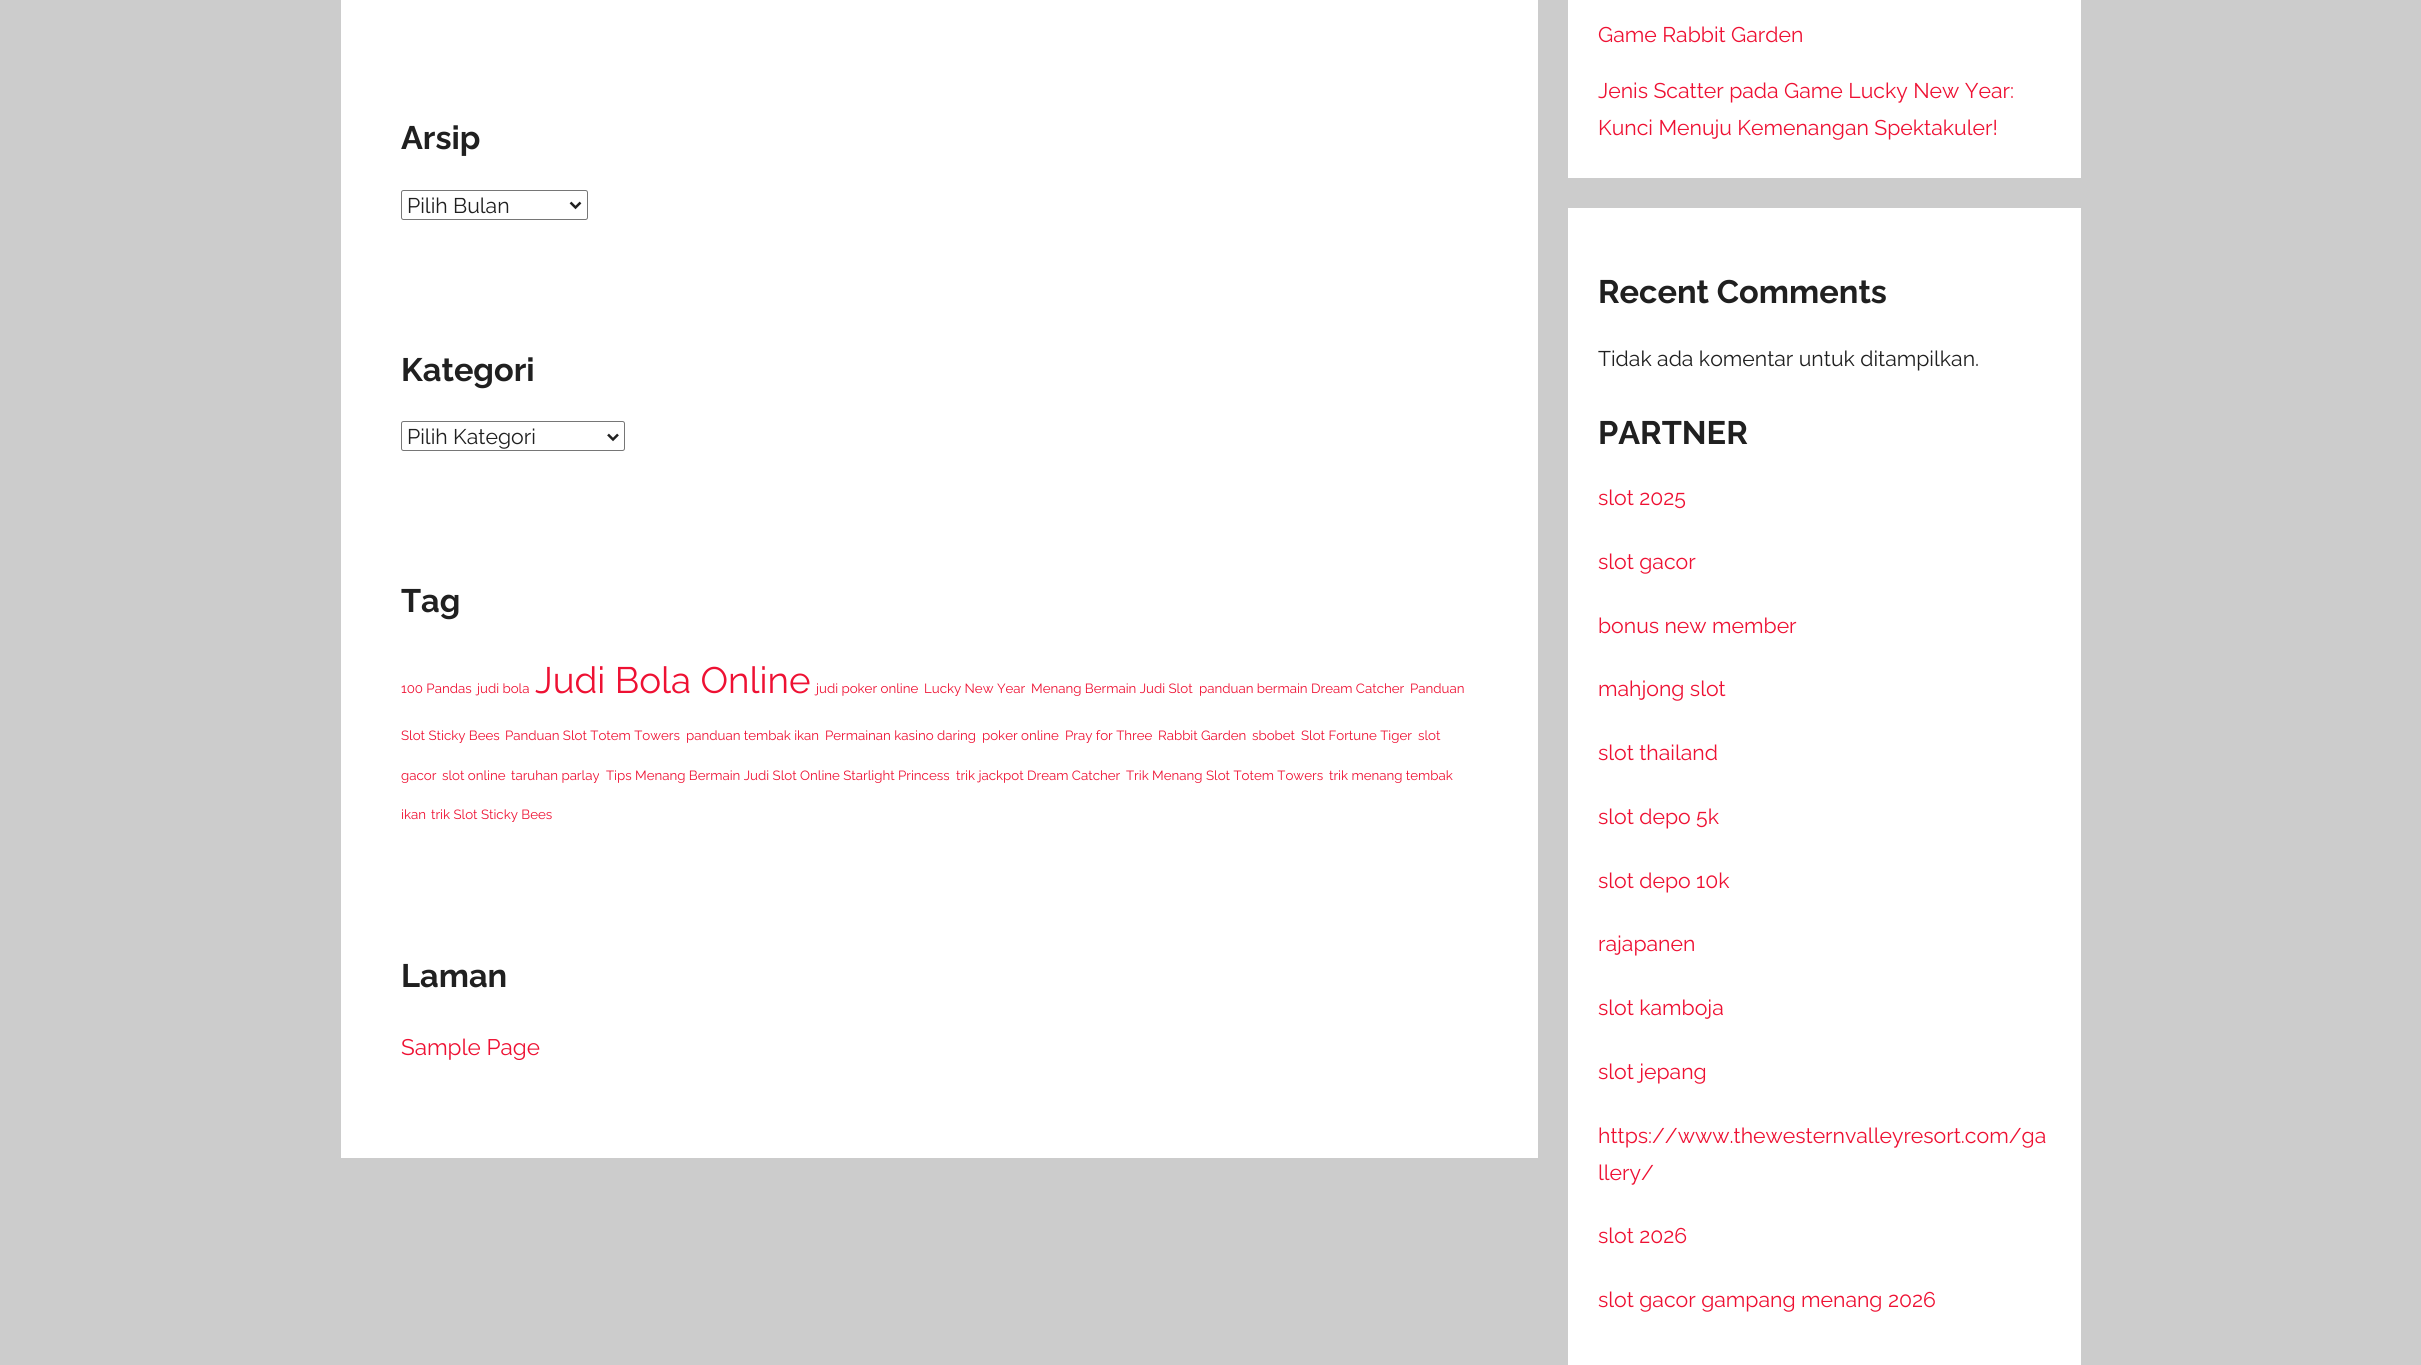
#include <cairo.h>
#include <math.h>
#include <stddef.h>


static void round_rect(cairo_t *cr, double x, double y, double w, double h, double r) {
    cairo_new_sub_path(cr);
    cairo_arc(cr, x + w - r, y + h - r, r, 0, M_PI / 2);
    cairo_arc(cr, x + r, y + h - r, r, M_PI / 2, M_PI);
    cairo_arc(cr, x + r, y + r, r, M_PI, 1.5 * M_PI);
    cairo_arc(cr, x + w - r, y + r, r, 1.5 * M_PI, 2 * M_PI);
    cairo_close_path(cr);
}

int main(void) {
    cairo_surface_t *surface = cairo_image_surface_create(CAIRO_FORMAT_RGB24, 2421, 1365);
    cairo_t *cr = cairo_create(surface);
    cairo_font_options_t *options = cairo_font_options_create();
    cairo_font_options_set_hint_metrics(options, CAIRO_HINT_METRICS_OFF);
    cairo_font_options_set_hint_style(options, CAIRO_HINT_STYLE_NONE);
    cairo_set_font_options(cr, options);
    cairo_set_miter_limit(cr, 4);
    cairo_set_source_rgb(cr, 0.8, 0.8, 0.8);
    cairo_paint(cr);
    cairo_set_source_rgb(cr, 1, 1, 1);
    cairo_rectangle(cr, 341, 0, 1197, 1158);
    cairo_fill(cr);
    cairo_select_font_face(cr, "Raleway", CAIRO_FONT_SLANT_NORMAL, CAIRO_FONT_WEIGHT_BOLD);
    cairo_set_font_size(cr, 32.5);
    cairo_set_source_rgb(cr, 0.125, 0.125, 0.125);
    cairo_move_to(cr, 401, 149);
    cairo_show_text(cr, "Arsip");
    round_rect(cr, 401.5, 190.5, 186, 29, 2);
    cairo_set_source_rgb(cr, 0.463, 0.463, 0.463);
    cairo_set_line_width(cr, 1);
    cairo_stroke(cr);
    cairo_new_path(cr);
    cairo_move_to(cr, 570.5, 202.5);
    cairo_line_to(cr, 575.5, 207.5);
    cairo_line_to(cr, 580.5, 202.5);
    cairo_set_source_rgb(cr, 0.125, 0.125, 0.125);
    cairo_set_line_width(cr, 2.5);
    cairo_stroke(cr);
    cairo_select_font_face(cr, "Raleway", CAIRO_FONT_SLANT_NORMAL, CAIRO_FONT_WEIGHT_NORMAL);
    cairo_set_font_size(cr, 21.25);
    cairo_move_to(cr, 407, 213);
    cairo_show_text(cr, "Pilih Bulan");
    cairo_select_font_face(cr, "Raleway", CAIRO_FONT_SLANT_NORMAL, CAIRO_FONT_WEIGHT_BOLD);
    cairo_set_font_size(cr, 32.5);
    cairo_move_to(cr, 401, 381);
    cairo_show_text(cr, "Kategori");
    round_rect(cr, 401.5, 421.5, 223, 29, 2);
    cairo_set_source_rgb(cr, 0.463, 0.463, 0.463);
    cairo_set_line_width(cr, 1);
    cairo_stroke(cr);
    cairo_new_path(cr);
    cairo_move_to(cr, 608, 434.5);
    cairo_line_to(cr, 613, 439.5);
    cairo_line_to(cr, 618, 434.5);
    cairo_set_source_rgb(cr, 0.125, 0.125, 0.125);
    cairo_set_line_width(cr, 2.5);
    cairo_stroke(cr);
    cairo_select_font_face(cr, "Raleway", CAIRO_FONT_SLANT_NORMAL, CAIRO_FONT_WEIGHT_NORMAL);
    cairo_set_font_size(cr, 21.25);
    cairo_move_to(cr, 407, 444);
    cairo_show_text(cr, "Pilih Kategori");
    cairo_select_font_face(cr, "Raleway", CAIRO_FONT_SLANT_NORMAL, CAIRO_FONT_WEIGHT_BOLD);
    cairo_set_font_size(cr, 32.5);
    cairo_move_to(cr, 401, 612);
    cairo_show_text(cr, "Tag");
    cairo_select_font_face(cr, "Raleway", CAIRO_FONT_SLANT_NORMAL, CAIRO_FONT_WEIGHT_NORMAL);
    cairo_set_font_size(cr, 13.3);
    cairo_set_source_rgb(cr, 0.933, 0.067, 0.2);
    cairo_move_to(cr, 401, 693);
    cairo_show_text(cr, "100 Pandas");
    cairo_move_to(cr, 477, 693);
    cairo_show_text(cr, "judi bola");
    cairo_set_font_size(cr, 36.75);
    cairo_move_to(cr, 535, 693);
    cairo_show_text(cr, "Judi Bola Online");
    cairo_set_font_size(cr, 13.3);
    cairo_move_to(cr, 816, 693);
    cairo_show_text(cr, "judi poker online");
    cairo_move_to(cr, 924, 693);
    cairo_show_text(cr, "Lucky New Year");
    cairo_move_to(cr, 1031, 693);
    cairo_show_text(cr, "Menang Bermain Judi Slot");
    cairo_move_to(cr, 1199, 693);
    cairo_show_text(cr, "panduan bermain Dream Catcher");
    cairo_move_to(cr, 1410, 693);
    cairo_show_text(cr, "Panduan");
    cairo_move_to(cr, 401, 740);
    cairo_show_text(cr, "Slot Sticky Bees");
    cairo_move_to(cr, 505, 740);
    cairo_show_text(cr, "Panduan Slot Totem Towers");
    cairo_move_to(cr, 686, 740);
    cairo_show_text(cr, "panduan tembak ikan");
    cairo_move_to(cr, 825, 740);
    cairo_show_text(cr, "Permainan kasino daring");
    cairo_move_to(cr, 982, 740);
    cairo_show_text(cr, "poker online");
    cairo_move_to(cr, 1065, 740);
    cairo_show_text(cr, "Pray for Three");
    cairo_move_to(cr, 1158, 740);
    cairo_show_text(cr, "Rabbit Garden");
    cairo_move_to(cr, 1252, 740);
    cairo_show_text(cr, "sbobet");
    cairo_move_to(cr, 1301, 740);
    cairo_show_text(cr, "Slot Fortune Tiger");
    cairo_move_to(cr, 1418, 740);
    cairo_show_text(cr, "slot");
    cairo_move_to(cr, 401, 780);
    cairo_show_text(cr, "gacor");
    cairo_move_to(cr, 442, 780);
    cairo_show_text(cr, "slot online");
    cairo_move_to(cr, 511, 780);
    cairo_show_text(cr, "taruhan parlay");
    cairo_move_to(cr, 606, 780);
    cairo_show_text(cr, "Tips Menang Bermain Judi Slot Online Starlight Princess");
    cairo_move_to(cr, 956, 780);
    cairo_show_text(cr, "trik jackpot Dream Catcher");
    cairo_move_to(cr, 1126, 780);
    cairo_show_text(cr, "Trik Menang Slot Totem Towers");
    cairo_move_to(cr, 1329, 780);
    cairo_show_text(cr, "trik menang tembak");
    cairo_move_to(cr, 401, 819);
    cairo_show_text(cr, "ikan");
    cairo_move_to(cr, 431, 819);
    cairo_show_text(cr, "trik Slot Sticky Bees");
    cairo_select_font_face(cr, "Raleway", CAIRO_FONT_SLANT_NORMAL, CAIRO_FONT_WEIGHT_BOLD);
    cairo_set_font_size(cr, 32.5);
    cairo_set_source_rgb(cr, 0.125, 0.125, 0.125);
    cairo_move_to(cr, 401, 987);
    cairo_show_text(cr, "Laman");
    cairo_select_font_face(cr, "Raleway", CAIRO_FONT_SLANT_NORMAL, CAIRO_FONT_WEIGHT_NORMAL);
    cairo_set_font_size(cr, 22.5);
    cairo_set_source_rgb(cr, 0.933, 0.067, 0.2);
    cairo_move_to(cr, 401, 1055);
    cairo_show_text(cr, "Sample Page");
    cairo_set_source_rgb(cr, 1, 1, 1);
    cairo_rectangle(cr, 1568, 0, 513, 178);
    cairo_fill(cr);
    cairo_set_font_size(cr, 21.25);
    cairo_set_source_rgb(cr, 0.933, 0.067, 0.2);
    cairo_move_to(cr, 1598, 42);
    cairo_show_text(cr, "Game Rabbit Garden");
    cairo_move_to(cr, 1598, 98);
    cairo_show_text(cr, "Jenis Scatter pada Game Lucky New Year:");
    cairo_move_to(cr, 1598, 135);
    cairo_show_text(cr, "Kunci Menuju Kemenangan Spektakuler!");
    cairo_set_source_rgb(cr, 1, 1, 1);
    cairo_rectangle(cr, 1568, 208, 513, 1157);
    cairo_fill(cr);
    cairo_select_font_face(cr, "Raleway", CAIRO_FONT_SLANT_NORMAL, CAIRO_FONT_WEIGHT_BOLD);
    cairo_set_font_size(cr, 32.5);
    cairo_set_source_rgb(cr, 0.125, 0.125, 0.125);
    cairo_move_to(cr, 1598, 303);
    cairo_show_text(cr, "Recent Comments");
    cairo_select_font_face(cr, "Raleway", CAIRO_FONT_SLANT_NORMAL, CAIRO_FONT_WEIGHT_NORMAL);
    cairo_set_font_size(cr, 21.25);
    cairo_move_to(cr, 1598, 366);
    cairo_show_text(cr, "Tidak ada komentar untuk ditampilkan.");
    cairo_select_font_face(cr, "Raleway", CAIRO_FONT_SLANT_NORMAL, CAIRO_FONT_WEIGHT_BOLD);
    cairo_set_font_size(cr, 32.5);
    cairo_move_to(cr, 1598, 444);
    cairo_show_text(cr, "PARTNER");
    cairo_select_font_face(cr, "Raleway", CAIRO_FONT_SLANT_NORMAL, CAIRO_FONT_WEIGHT_NORMAL);
    cairo_set_font_size(cr, 21.25);
    cairo_set_source_rgb(cr, 0.933, 0.067, 0.2);
    cairo_move_to(cr, 1598, 505);
    cairo_show_text(cr, "slot 2025");
    cairo_move_to(cr, 1598, 569);
    cairo_show_text(cr, "slot gacor");
    cairo_move_to(cr, 1598, 633);
    cairo_show_text(cr, "bonus new member");
    cairo_move_to(cr, 1598, 696);
    cairo_show_text(cr, "mahjong slot");
    cairo_move_to(cr, 1598, 760);
    cairo_show_text(cr, "slot thailand");
    cairo_move_to(cr, 1598, 824);
    cairo_show_text(cr, "slot depo 5k");
    cairo_move_to(cr, 1598, 888);
    cairo_show_text(cr, "slot depo 10k");
    cairo_move_to(cr, 1598, 951);
    cairo_show_text(cr, "rajapanen");
    cairo_move_to(cr, 1598, 1015);
    cairo_show_text(cr, "slot kamboja");
    cairo_move_to(cr, 1598, 1079);
    cairo_show_text(cr, "slot jepang");
    cairo_move_to(cr, 1598, 1143);
    cairo_show_text(cr, "https://www.thewesternvalleyresort.com/ga");
    cairo_move_to(cr, 1598, 1180);
    cairo_show_text(cr, "llery/");
    cairo_move_to(cr, 1598, 1243);
    cairo_show_text(cr, "slot 2026");
    cairo_move_to(cr, 1598, 1307);
    cairo_show_text(cr, "slot gacor gampang menang 2026");
    cairo_surface_write_to_png(surface, "page.png");
    cairo_font_options_destroy(options);
    cairo_destroy(cr);
    cairo_surface_destroy(surface);
    return 0;
}
